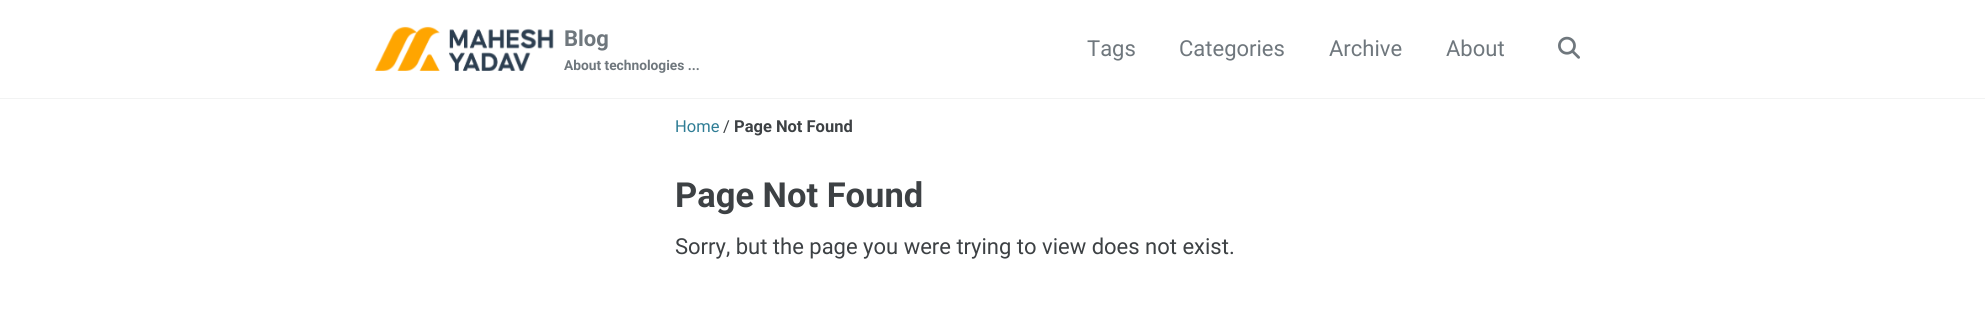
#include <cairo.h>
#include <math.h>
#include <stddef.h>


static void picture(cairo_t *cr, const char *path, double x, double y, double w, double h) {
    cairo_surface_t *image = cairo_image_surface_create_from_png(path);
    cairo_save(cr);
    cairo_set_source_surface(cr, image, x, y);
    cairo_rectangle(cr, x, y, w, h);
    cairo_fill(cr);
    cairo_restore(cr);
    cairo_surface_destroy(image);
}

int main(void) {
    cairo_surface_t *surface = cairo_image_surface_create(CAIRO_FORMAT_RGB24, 1985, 327);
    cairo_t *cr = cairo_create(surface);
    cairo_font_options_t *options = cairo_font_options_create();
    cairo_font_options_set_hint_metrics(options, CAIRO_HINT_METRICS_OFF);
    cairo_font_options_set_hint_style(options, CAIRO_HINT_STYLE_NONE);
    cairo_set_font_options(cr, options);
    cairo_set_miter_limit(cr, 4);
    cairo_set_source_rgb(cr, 1, 1, 1);
    cairo_paint(cr);
    cairo_set_source_rgb(cr, 0.949, 0.953, 0.953);
    cairo_rectangle(cr, 0, 98, 1985, 1);
    cairo_fill(cr);
    picture(cr, "img1.png", 375, 26, 179, 45);
    cairo_select_font_face(cr, "Roboto", CAIRO_FONT_SLANT_NORMAL, CAIRO_FONT_WEIGHT_BOLD);
    cairo_set_font_size(cr, 22);
    cairo_set_source_rgb(cr, 0.435, 0.467, 0.49);
    cairo_move_to(cr, 564, 46);
    cairo_show_text(cr, "Blog");
    cairo_set_font_size(cr, 13.75);
    cairo_move_to(cr, 564, 70);
    cairo_show_text(cr, "About technologies ...");
    cairo_select_font_face(cr, "Roboto", CAIRO_FONT_SLANT_NORMAL, CAIRO_FONT_WEIGHT_NORMAL);
    cairo_set_font_size(cr, 22);
    cairo_move_to(cr, 1087, 56);
    cairo_show_text(cr, "Tags");
    cairo_move_to(cr, 1179, 56);
    cairo_show_text(cr, "Categories");
    cairo_move_to(cr, 1329, 56);
    cairo_show_text(cr, "Archive");
    cairo_move_to(cr, 1446, 56);
    cairo_show_text(cr, "About");
    picture(cr, "img2.png", 1558, 36, 22, 23);
    cairo_set_font_size(cr, 16.5);
    cairo_set_source_rgb(cr, 0.184, 0.49, 0.584);
    cairo_move_to(cr, 675, 132);
    cairo_show_text(cr, "Home");
    cairo_set_source_rgb(cr, 0.239, 0.255, 0.267);
    cairo_move_to(cr, 723, 132);
    cairo_show_text(cr, "/");
    cairo_select_font_face(cr, "Roboto", CAIRO_FONT_SLANT_NORMAL, CAIRO_FONT_WEIGHT_BOLD);
    cairo_move_to(cr, 734, 132);
    cairo_show_text(cr, "Page Not Found");
    cairo_set_font_size(cr, 34.5);
    cairo_move_to(cr, 675, 207);
    cairo_show_text(cr, "Page Not Found");
    cairo_select_font_face(cr, "Roboto", CAIRO_FONT_SLANT_NORMAL, CAIRO_FONT_WEIGHT_NORMAL);
    cairo_set_font_size(cr, 22);
    cairo_move_to(cr, 675, 254);
    cairo_show_text(cr, "Sorry, but the page you were trying to view does not exist.");
    cairo_surface_write_to_png(surface, "page.png");
    cairo_font_options_destroy(options);
    cairo_destroy(cr);
    cairo_surface_destroy(surface);
    return 0;
}
